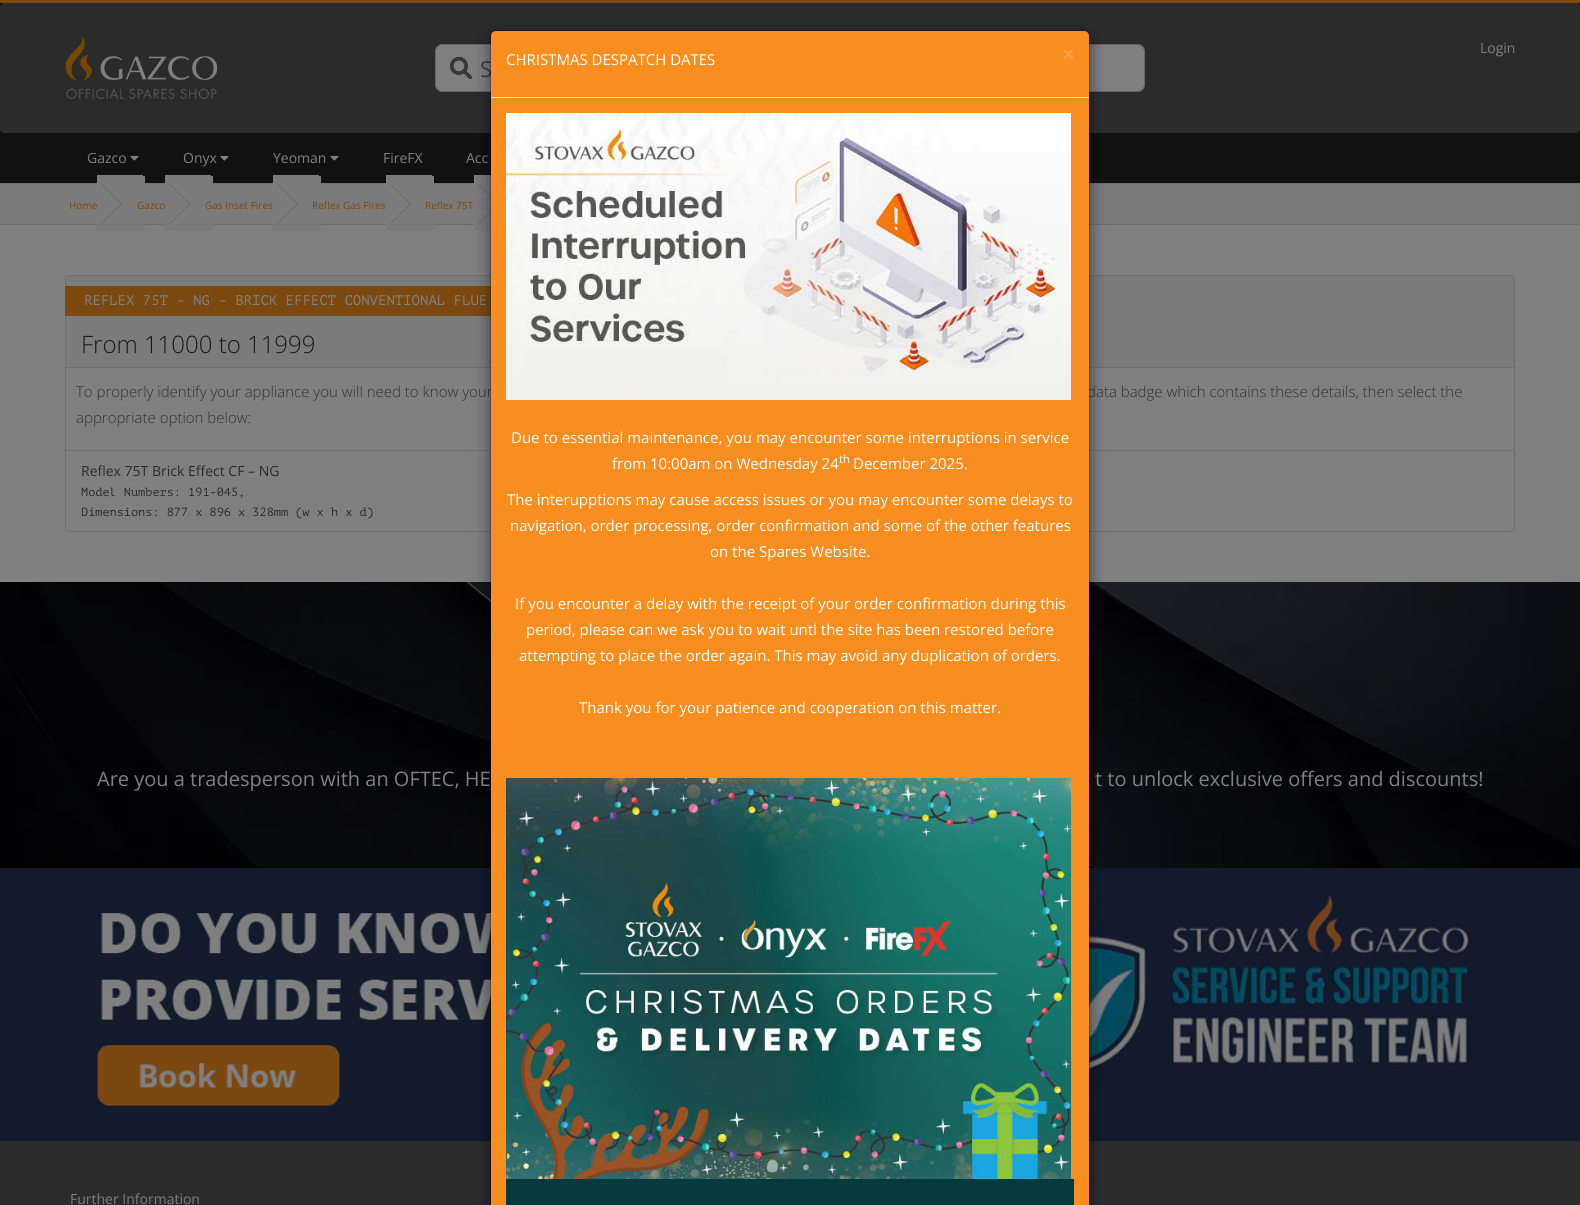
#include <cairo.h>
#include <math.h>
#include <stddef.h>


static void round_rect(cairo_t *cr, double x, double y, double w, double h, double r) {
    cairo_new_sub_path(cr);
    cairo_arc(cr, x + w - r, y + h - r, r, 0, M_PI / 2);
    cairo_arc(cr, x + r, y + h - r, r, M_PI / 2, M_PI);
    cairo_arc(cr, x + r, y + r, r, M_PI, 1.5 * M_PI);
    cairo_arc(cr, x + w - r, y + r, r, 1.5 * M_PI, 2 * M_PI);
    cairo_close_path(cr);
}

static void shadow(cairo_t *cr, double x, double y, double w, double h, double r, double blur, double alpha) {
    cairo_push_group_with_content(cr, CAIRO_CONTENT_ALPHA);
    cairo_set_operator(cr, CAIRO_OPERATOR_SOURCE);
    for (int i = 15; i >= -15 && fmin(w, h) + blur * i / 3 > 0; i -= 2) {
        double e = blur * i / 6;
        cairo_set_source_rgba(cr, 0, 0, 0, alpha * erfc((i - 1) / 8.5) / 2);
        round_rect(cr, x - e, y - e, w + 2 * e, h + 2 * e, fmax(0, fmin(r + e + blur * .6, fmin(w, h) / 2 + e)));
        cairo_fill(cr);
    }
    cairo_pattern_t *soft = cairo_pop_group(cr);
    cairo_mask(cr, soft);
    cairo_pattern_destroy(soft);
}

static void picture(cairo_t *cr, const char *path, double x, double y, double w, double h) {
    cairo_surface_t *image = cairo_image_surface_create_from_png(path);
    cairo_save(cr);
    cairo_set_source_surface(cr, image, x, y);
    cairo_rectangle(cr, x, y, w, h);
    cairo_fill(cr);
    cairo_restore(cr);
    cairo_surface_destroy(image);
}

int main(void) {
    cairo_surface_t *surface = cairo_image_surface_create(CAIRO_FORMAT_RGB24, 1580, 1205);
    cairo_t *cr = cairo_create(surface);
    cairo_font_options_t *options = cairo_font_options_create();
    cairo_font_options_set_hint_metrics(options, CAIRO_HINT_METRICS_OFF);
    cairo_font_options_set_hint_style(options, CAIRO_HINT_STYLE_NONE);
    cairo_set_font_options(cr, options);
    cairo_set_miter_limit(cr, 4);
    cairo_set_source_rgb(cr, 0.067, 0.067, 0.067);
    cairo_paint(cr);
    cairo_set_source_rgb(cr, 0.486, 0.278, 0.063);
    cairo_rectangle(cr, 0, 0, 1580, 3);
    cairo_fill(cr);
    cairo_set_source_rgb(cr, 0.169, 0.169, 0.169);
    round_rect(cr, 0, 3, 1580, 130, 4);
    cairo_fill(cr);
    picture(cr, "img1.png", 65, 37, 153, 62);
    cairo_select_font_face(cr, "Open Sans", CAIRO_FONT_SLANT_NORMAL, CAIRO_FONT_WEIGHT_NORMAL);
    cairo_set_font_size(cr, 14);
    cairo_set_source_rgb(cr, 0.502, 0.502, 0.502);
    cairo_move_to(cr, 1480, 53);
    cairo_show_text(cr, "Login");
    round_rect(cr, 435, 44, 710, 48, 8);
    cairo_fill(cr);
    picture(cr, "img3.png", 450, 57, 22, 22);
    picture(cr, "img2.png", 450, 57, 22, 22);
    round_rect(cr, 435.5, 44.5, 709, 47, 7.5);
    cairo_set_source_rgb(cr, 0.4, 0.4, 0.4);
    cairo_set_line_width(cr, 1);
    cairo_stroke(cr);
    cairo_set_font_size(cr, 22);
    cairo_set_source_rgb(cr, 0.231, 0.231, 0.231);
    cairo_move_to(cr, 480, 77);
    cairo_show_text(cr, "S");
    cairo_set_font_size(cr, 14);
    cairo_set_source_rgb(cr, 0.502, 0.502, 0.502);
    cairo_move_to(cr, 87, 163);
    cairo_show_text(cr, "Gazco");
    picture(cr, "img4.png", 130, 156, 9, 5);
    cairo_move_to(cr, 183, 163);
    cairo_show_text(cr, "Onyx");
    picture(cr, "img4.png", 220, 156, 9, 5);
    cairo_move_to(cr, 273, 163);
    cairo_show_text(cr, "Yeoman");
    picture(cr, "img4.png", 330, 156, 9, 5);
    cairo_move_to(cr, 383, 163);
    cairo_show_text(cr, "FireFX");
    cairo_move_to(cr, 466, 163);
    cairo_show_text(cr, "Acc");
    cairo_set_source_rgb(cr, 0.482, 0.482, 0.482);
    cairo_rectangle(cr, 0, 184, 1580, 40);
    cairo_fill(cr);
    cairo_set_source_rgb(cr, 0.435, 0.435, 0.435);
    cairo_rectangle(cr, 0, 183, 1580, 1);
    cairo_fill(cr);
    cairo_set_source_rgb(cr, 0.502, 0.502, 0.502);
    cairo_rectangle(cr, 0, 225, 1580, 357);
    cairo_fill(cr);
    cairo_set_source_rgb(cr, 0.435, 0.435, 0.435);
    cairo_rectangle(cr, 0, 224, 1580, 1);
    cairo_fill(cr);
    cairo_set_source_rgb(cr, 0.482, 0.482, 0.482);
    cairo_rectangle(cr, 97, 175, 46, 56);
    cairo_fill(cr);
    cairo_rectangle(cr, 143, 176, 2, 54);
    cairo_fill(cr);
    cairo_set_source_rgb(cr, 0.4, 0.4, 0.4);
    cairo_new_path(cr);
    cairo_move_to(cr, 101, 225);
    cairo_line_to(cr, 101, 183);
    cairo_line_to(cr, 122, 204);
    cairo_close_path(cr);
    cairo_fill(cr);
    cairo_set_font_size(cr, 10);
    cairo_set_source_rgb(cr, 0.486, 0.286, 0.067);
    cairo_move_to(cr, 69, 209);
    cairo_show_text(cr, "Home");
    cairo_set_source_rgb(cr, 0.482, 0.482, 0.482);
    cairo_new_path(cr);
    cairo_move_to(cr, 101, 224);
    cairo_line_to(cr, 101, 184);
    cairo_line_to(cr, 121, 204);
    cairo_close_path(cr);
    cairo_fill(cr);
    cairo_rectangle(cr, 165, 175, 46, 56);
    cairo_fill(cr);
    cairo_rectangle(cr, 211, 176, 2, 54);
    cairo_fill(cr);
    cairo_set_source_rgb(cr, 0.4, 0.4, 0.4);
    cairo_new_path(cr);
    cairo_move_to(cr, 169, 225);
    cairo_line_to(cr, 169, 183);
    cairo_line_to(cr, 190, 204);
    cairo_close_path(cr);
    cairo_fill(cr);
    cairo_set_source_rgb(cr, 0.486, 0.286, 0.067);
    cairo_move_to(cr, 137, 209);
    cairo_show_text(cr, "Gazco");
    cairo_set_source_rgb(cr, 0.482, 0.482, 0.482);
    cairo_new_path(cr);
    cairo_move_to(cr, 169, 224);
    cairo_line_to(cr, 169, 184);
    cairo_line_to(cr, 189, 204);
    cairo_close_path(cr);
    cairo_fill(cr);
    cairo_rectangle(cr, 273, 175, 46, 56);
    cairo_fill(cr);
    cairo_rectangle(cr, 319, 176, 2, 54);
    cairo_fill(cr);
    cairo_set_source_rgb(cr, 0.4, 0.4, 0.4);
    cairo_new_path(cr);
    cairo_move_to(cr, 277, 225);
    cairo_line_to(cr, 277, 183);
    cairo_line_to(cr, 298, 204);
    cairo_close_path(cr);
    cairo_fill(cr);
    cairo_set_source_rgb(cr, 0.486, 0.286, 0.067);
    cairo_move_to(cr, 205, 209);
    cairo_show_text(cr, "Gas Inset Fires");
    cairo_set_source_rgb(cr, 0.482, 0.482, 0.482);
    cairo_new_path(cr);
    cairo_move_to(cr, 277, 224);
    cairo_line_to(cr, 277, 184);
    cairo_line_to(cr, 297, 204);
    cairo_close_path(cr);
    cairo_fill(cr);
    cairo_rectangle(cr, 386, 175, 46, 56);
    cairo_fill(cr);
    cairo_rectangle(cr, 432, 176, 2, 54);
    cairo_fill(cr);
    cairo_set_source_rgb(cr, 0.4, 0.4, 0.4);
    cairo_new_path(cr);
    cairo_move_to(cr, 390, 225);
    cairo_line_to(cr, 390, 183);
    cairo_line_to(cr, 411, 204);
    cairo_close_path(cr);
    cairo_fill(cr);
    cairo_set_source_rgb(cr, 0.486, 0.286, 0.067);
    cairo_move_to(cr, 312, 209);
    cairo_show_text(cr, "Reflex Gas Fires");
    cairo_set_source_rgb(cr, 0.482, 0.482, 0.482);
    cairo_new_path(cr);
    cairo_move_to(cr, 390, 224);
    cairo_line_to(cr, 390, 184);
    cairo_line_to(cr, 410, 204);
    cairo_close_path(cr);
    cairo_fill(cr);
    cairo_rectangle(cr, 474, 175, 17, 56);
    cairo_fill(cr);
    cairo_set_source_rgb(cr, 0.4, 0.4, 0.4);
    cairo_new_path(cr);
    cairo_move_to(cr, 478, 225);
    cairo_line_to(cr, 478, 183);
    cairo_line_to(cr, 499, 204);
    cairo_close_path(cr);
    cairo_fill(cr);
    cairo_set_source_rgb(cr, 0.486, 0.286, 0.067);
    cairo_move_to(cr, 425, 209);
    cairo_show_text(cr, "Reflex 75T");
    cairo_set_source_rgb(cr, 0.482, 0.482, 0.482);
    cairo_new_path(cr);
    cairo_move_to(cr, 478, 224);
    cairo_line_to(cr, 478, 184);
    cairo_line_to(cr, 498, 204);
    cairo_close_path(cr);
    cairo_fill(cr);
    round_rect(cr, 65.5, 275.5, 1449, 256, 3.5);
    cairo_set_source_rgb(cr, 0.435, 0.435, 0.435);
    cairo_stroke(cr);
    cairo_set_source_rgb(cr, 0.482, 0.482, 0.482);
    cairo_new_path(cr);
    cairo_move_to(cr, 69, 276);
    cairo_line_to(cr, 1511, 276);
    cairo_curve_to(cr, 1512.5, 276, 1514, 277.5, 1514, 279);
    cairo_line_to(cr, 1514, 368);
    cairo_line_to(cr, 66, 368);
    cairo_line_to(cr, 66, 279);
    cairo_curve_to(cr, 66, 277.5, 67.5, 276, 69, 276);
    cairo_close_path(cr);
    cairo_fill(cr);
    cairo_set_source_rgb(cr, 0.435, 0.435, 0.435);
    cairo_rectangle(cr, 66, 367, 1448, 1);
    cairo_fill(cr);
    cairo_set_source_rgb(cr, 0.486, 0.286, 0.067);
    cairo_rectangle(cr, 65, 286, 426, 30);
    cairo_fill(cr);
    cairo_select_font_face(cr, "PT Mono", CAIRO_FONT_SLANT_NORMAL, CAIRO_FONT_WEIGHT_NORMAL);
    cairo_set_font_size(cr, 14);
    cairo_set_source_rgb(cr, 0.502, 0.502, 0.502);
    cairo_move_to(cr, 84, 305);
    cairo_show_text(cr, "REFLEX 75T – NG – BRICK EFFECT CONVENTIONAL FLUE");
    cairo_select_font_face(cr, "Open Sans Light", CAIRO_FONT_SLANT_NORMAL, CAIRO_FONT_WEIGHT_NORMAL);
    cairo_set_font_size(cr, 24);
    cairo_set_source_rgb(cr, 0.102, 0.102, 0.102);
    cairo_move_to(cr, 81, 353);
    cairo_show_text(cr, "From 11000 to 11999");
    cairo_set_font_size(cr, 15);
    cairo_set_source_rgb(cr, 0.2, 0.2, 0.2);
    cairo_move_to(cr, 76, 397);
    cairo_show_text(cr, "To properly identify your appliance you will need to know your");
    cairo_move_to(cr, 1087, 397);
    cairo_show_text(cr, "data badge which contains these details, then select the");
    cairo_move_to(cr, 76, 423);
    cairo_show_text(cr, "appropriate option below:");
    cairo_set_source_rgb(cr, 0.502, 0.502, 0.502);
    cairo_new_path(cr);
    cairo_move_to(cr, 66, 450);
    cairo_line_to(cr, 1514, 450);
    cairo_line_to(cr, 1514, 528);
    cairo_curve_to(cr, 1514, 529.5, 1512.5, 531, 1511, 531);
    cairo_line_to(cr, 69, 531);
    cairo_curve_to(cr, 67.5, 531, 66, 529.5, 66, 528);
    cairo_close_path(cr);
    cairo_fill(cr);
    cairo_set_source_rgb(cr, 0.435, 0.435, 0.435);
    cairo_rectangle(cr, 66, 450, 1448, 1);
    cairo_fill(cr);
    cairo_select_font_face(cr, "Open Sans", CAIRO_FONT_SLANT_NORMAL, CAIRO_FONT_WEIGHT_NORMAL);
    cairo_set_font_size(cr, 14);
    cairo_set_source_rgb(cr, 0.169, 0.169, 0.169);
    cairo_move_to(cr, 81, 476);
    cairo_show_text(cr, "Reflex 75T Brick Effect CF – NG");
    cairo_select_font_face(cr, "PT Mono", CAIRO_FONT_SLANT_NORMAL, CAIRO_FONT_WEIGHT_NORMAL);
    cairo_set_font_size(cr, 11.9);
    cairo_move_to(cr, 81, 496);
    cairo_show_text(cr, "Model Numbers: 191-045,");
    cairo_move_to(cr, 81, 516);
    cairo_show_text(cr, "Dimensions: 877 x 896 x 328mm (w x h x d)");
    picture(cr, "img7.png", 0, 582, 1580, 286);
    cairo_set_source_rgb(cr, 0.071, 0.102, 0.173);
    cairo_rectangle(cr, 0, 868, 1580, 273);
    cairo_fill(cr);
    picture(cr, "img8.png", 97, 889, 1375, 219);
    cairo_set_source_rgb(cr, 0.169, 0.169, 0.169);
    cairo_rectangle(cr, 0, 1141, 1580, 64);
    cairo_fill(cr);
    cairo_set_source_rgb(cr, 0, 0, 0);
    shadow(cr, 490, 35, 600, 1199, 6, 7.5, 0.5);
    cairo_set_source_rgb(cr, 0.969, 0.557, 0.122);
    cairo_new_path(cr);
    cairo_move_to(cr, 496, 31);
    cairo_line_to(cr, 1084, 31);
    cairo_curve_to(cr, 1087, 31, 1089, 33, 1089, 36);
    cairo_line_to(cr, 1089, 1205);
    cairo_line_to(cr, 491, 1205);
    cairo_line_to(cr, 491, 36);
    cairo_curve_to(cr, 491, 33, 493, 31, 496, 31);
    cairo_close_path(cr);
    cairo_fill(cr);
    round_rect(cr, 490.5, 30.5, 599, 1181, 5.5);
    cairo_set_source_rgba(cr, 0, 0, 0, 0.2);
    cairo_stroke(cr);
    cairo_set_source_rgb(cr, 0.898, 0.898, 0.898);
    cairo_rectangle(cr, 491, 97, 598, 1);
    cairo_fill(cr);
    cairo_select_font_face(cr, "Open Sans", CAIRO_FONT_SLANT_NORMAL, CAIRO_FONT_WEIGHT_NORMAL);
    cairo_set_font_size(cr, 15);
    cairo_set_source_rgb(cr, 1, 1, 1);
    cairo_move_to(cr, 506, 65);
    cairo_show_text(cr, "CHRISTMAS DESPATCH DATES");
    cairo_select_font_face(cr, "Open Sans", CAIRO_FONT_SLANT_NORMAL, CAIRO_FONT_WEIGHT_BOLD);
    cairo_set_font_size(cr, 21);
    cairo_set_source_rgb(cr, 0.976, 0.647, 0.298);
    cairo_move_to(cr, 1062, 62);
    cairo_show_text(cr, "×");
    picture(cr, "img5.png", 506, 113, 565, 287);
    cairo_select_font_face(cr, "Open Sans", CAIRO_FONT_SLANT_NORMAL, CAIRO_FONT_WEIGHT_NORMAL);
    cairo_set_font_size(cr, 15);
    cairo_set_source_rgb(cr, 1, 1, 1);
    cairo_move_to(cr, 511, 443);
    cairo_show_text(cr, "Due to essential maintenance, you may encounter some interruptions in service");
    cairo_move_to(cr, 612, 469);
    cairo_show_text(cr, "from 10:00am on Wednesday 24");
    cairo_set_font_size(cr, 11);
    cairo_move_to(cr, 839, 463);
    cairo_show_text(cr, "th");
    cairo_set_font_size(cr, 15);
    cairo_move_to(cr, 853, 469);
    cairo_show_text(cr, "December 2025.");
    cairo_move_to(cr, 507, 505);
    cairo_show_text(cr, "The interupptions may cause access issues or you may encounter some delays to");
    cairo_move_to(cr, 510, 531);
    cairo_show_text(cr, "navigation, order processing, order confirmation and some of the other features");
    cairo_move_to(cr, 710, 557);
    cairo_show_text(cr, "on the Spares Website.");
    cairo_move_to(cr, 515, 609);
    cairo_show_text(cr, "If you encounter a delay with the receipt of your order confirmation during this");
    cairo_move_to(cr, 526, 635);
    cairo_show_text(cr, "period, please can we ask you to wait untl the site has been restored before");
    cairo_move_to(cr, 519, 661);
    cairo_show_text(cr, "attempting to place the order again. This may avoid any duplication of orders.");
    cairo_move_to(cr, 579, 713);
    cairo_show_text(cr, "Thank you for your patience and cooperation on this matter.");
    picture(cr, "img6.png", 506, 778, 565, 401);
    cairo_set_source_rgb(cr, 0.02, 0.227, 0.243);
    cairo_rectangle(cr, 506, 1179, 568, 26);
    cairo_fill(cr);
    cairo_set_font_size(cr, 20);
    cairo_set_source_rgb(cr, 0.502, 0.502, 0.502);
    cairo_move_to(cr, 97, 786);
    cairo_show_text(cr, "Are you a tradesperson with an OFTEC, HE");
    cairo_move_to(cr, 1095, 786);
    cairo_show_text(cr, "t to unlock exclusive offers and discounts!");
    cairo_set_font_size(cr, 14);
    cairo_move_to(cr, 70, 1204);
    cairo_show_text(cr, "Further Information");
    cairo_surface_write_to_png(surface, "page.png");
    cairo_font_options_destroy(options);
    cairo_destroy(cr);
    cairo_surface_destroy(surface);
    return 0;
}
